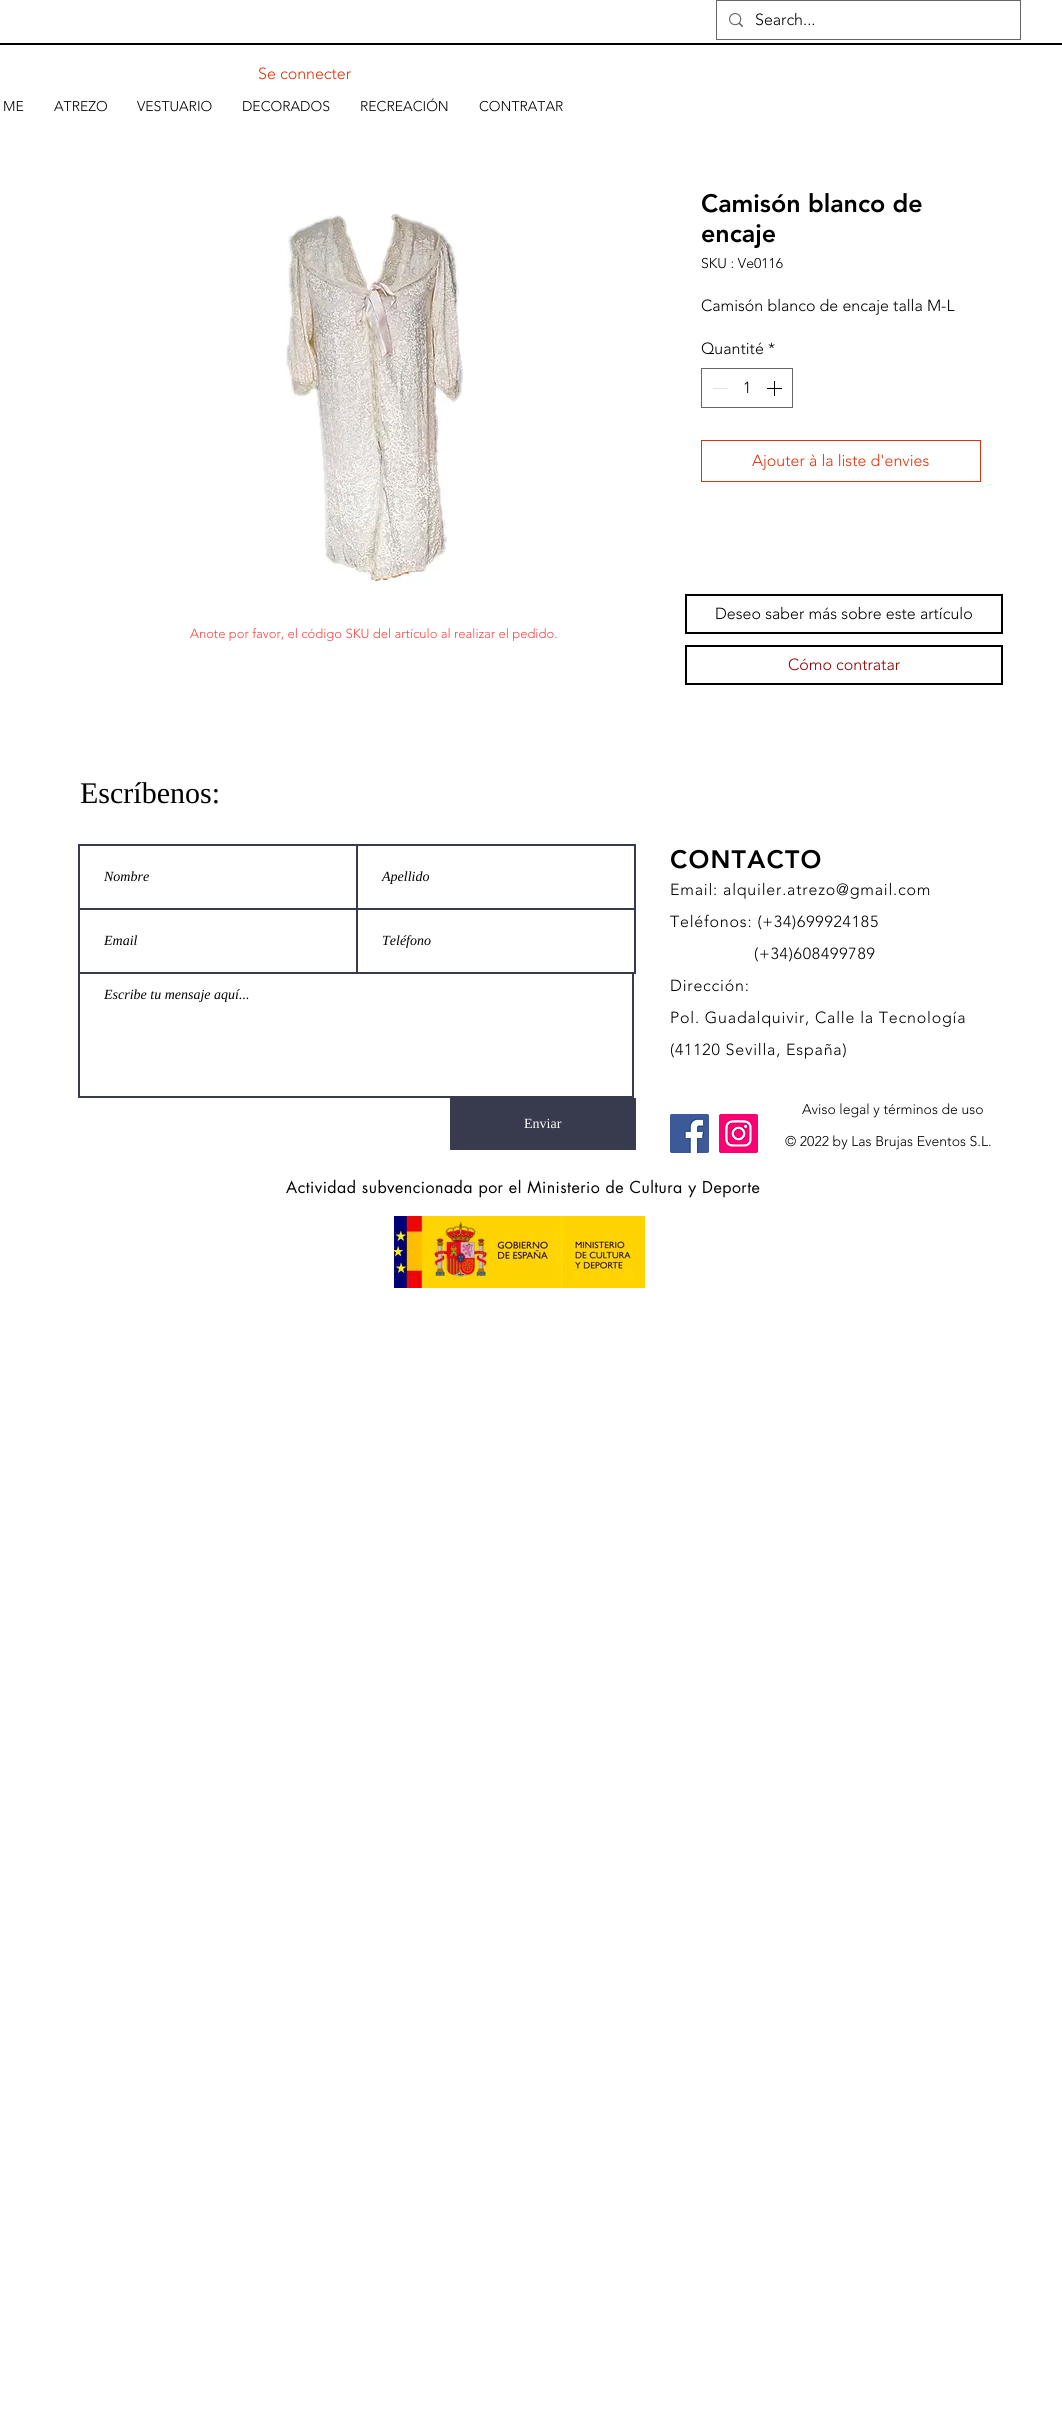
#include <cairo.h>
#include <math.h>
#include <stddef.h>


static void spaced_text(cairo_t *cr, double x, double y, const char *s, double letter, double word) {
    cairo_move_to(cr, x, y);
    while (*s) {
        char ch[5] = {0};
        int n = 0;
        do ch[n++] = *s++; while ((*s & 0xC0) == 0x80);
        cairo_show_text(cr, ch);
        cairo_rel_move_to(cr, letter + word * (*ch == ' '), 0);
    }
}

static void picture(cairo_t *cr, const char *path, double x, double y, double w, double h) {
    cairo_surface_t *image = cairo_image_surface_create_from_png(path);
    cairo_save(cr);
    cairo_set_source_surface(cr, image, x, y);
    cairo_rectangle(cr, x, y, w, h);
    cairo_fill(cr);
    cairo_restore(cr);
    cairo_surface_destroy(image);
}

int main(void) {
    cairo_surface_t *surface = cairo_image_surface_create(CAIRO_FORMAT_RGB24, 1062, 2426);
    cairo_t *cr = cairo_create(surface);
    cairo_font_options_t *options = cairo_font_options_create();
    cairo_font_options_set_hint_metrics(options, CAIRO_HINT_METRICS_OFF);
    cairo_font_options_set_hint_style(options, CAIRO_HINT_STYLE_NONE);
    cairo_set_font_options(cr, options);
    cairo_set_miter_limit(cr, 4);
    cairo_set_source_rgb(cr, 1, 1, 1);
    cairo_paint(cr);
    cairo_rectangle(cr, 716.5, 0.5, 304, 39);
    cairo_set_source_rgb(cr, 0.4, 0.4, 0.4);
    cairo_set_line_width(cr, 1);
    cairo_stroke(cr);
    picture(cr, "img1.png", 729, 13, 14, 14);
    cairo_select_font_face(cr, "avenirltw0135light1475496 Light", CAIRO_FONT_SLANT_NORMAL, CAIRO_FONT_WEIGHT_NORMAL);
    cairo_set_font_size(cr, 16);
    cairo_set_source_rgb(cr, 0, 0, 0);
    cairo_move_to(cr, 755, 25);
    cairo_show_text(cr, "Search...");
    cairo_rectangle(cr, 0, 43, 1062, 2);
    cairo_fill(cr);
    cairo_set_source_rgb(cr, 0.886, 0.188, 0.031);
    cairo_move_to(cr, 258, 79);
    cairo_show_text(cr, "Se connecter");
    cairo_set_font_size(cr, 14);
    cairo_set_source_rgb(cr, 0, 0, 0);
    cairo_move_to(cr, 3, 111);
    cairo_show_text(cr, "ME");
    cairo_move_to(cr, 54, 111);
    cairo_show_text(cr, "ATREZO");
    cairo_move_to(cr, 137, 111);
    cairo_show_text(cr, "VESTUARIO");
    cairo_move_to(cr, 242, 111);
    cairo_show_text(cr, "DECORADOS");
    cairo_move_to(cr, 360, 111);
    cairo_show_text(cr, "RECREACIÓN");
    cairo_move_to(cr, 479, 111);
    cairo_show_text(cr, "CONTRATAR");
    picture(cr, "img2.png", 286, 213, 178, 374);
    cairo_select_font_face(cr, "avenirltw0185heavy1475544 Black", CAIRO_FONT_SLANT_NORMAL, CAIRO_FONT_WEIGHT_NORMAL);
    cairo_set_font_size(cr, 25);
    cairo_move_to(cr, 701, 212);
    cairo_show_text(cr, "Camisón blanco de");
    cairo_move_to(cr, 701, 242);
    cairo_show_text(cr, "encaje");
    cairo_select_font_face(cr, "avenirltw0135light1475496 Light", CAIRO_FONT_SLANT_NORMAL, CAIRO_FONT_WEIGHT_NORMAL);
    cairo_set_font_size(cr, 14);
    cairo_move_to(cr, 701, 268);
    cairo_show_text(cr, "SKU : Ve0116");
    cairo_set_font_size(cr, 16);
    cairo_move_to(cr, 701, 311);
    cairo_show_text(cr, "Camisón blanco de encaje talla M-L");
    cairo_move_to(cr, 701, 354);
    cairo_show_text(cr, "Quantité *");
    cairo_rectangle(cr, 701.5, 368.5, 91, 39);
    cairo_set_source_rgb(cr, 0.4, 0.4, 0.4);
    cairo_stroke(cr);
    cairo_set_source_rgb(cr, 0.89, 0.89, 0.89);
    cairo_rectangle(cr, 713, 388, 15, 1);
    cairo_fill(cr);
    cairo_set_source_rgb(cr, 0, 0, 0);
    cairo_move_to(cr, 743, 393);
    cairo_show_text(cr, "1");
    picture(cr, "img3.png", 767, 381, 15, 15);
    cairo_rectangle(cr, 701.5, 440.5, 279, 41);
    cairo_set_source_rgb(cr, 0.886, 0.188, 0.031);
    cairo_stroke(cr);
    cairo_move_to(cr, 752, 466);
    cairo_show_text(cr, "Ajouter à la liste d'envies");
    cairo_rectangle(cr, 686, 595, 316, 38);
    cairo_set_source_rgb(cr, 0, 0, 0);
    cairo_set_line_width(cr, 2);
    cairo_stroke(cr);
    cairo_move_to(cr, 715, 619);
    cairo_show_text(cr, "Deseo saber más sobre este artículo");
    cairo_set_font_size(cr, 13);
    cairo_set_source_rgb(cr, 1, 0.251, 0.251);
    cairo_move_to(cr, 190, 638);
    cairo_show_text(cr, "Anote por favor, el código SKU del artículo al realizar el pedido.");
    cairo_rectangle(cr, 686, 646, 316, 38);
    cairo_set_source_rgb(cr, 0, 0, 0);
    cairo_stroke(cr);
    cairo_set_font_size(cr, 16);
    cairo_set_source_rgb(cr, 0.545, 0, 0);
    cairo_move_to(cr, 788, 670);
    cairo_show_text(cr, "Cómo contratar");
    cairo_select_font_face(cr, "Liberation Serif", CAIRO_FONT_SLANT_NORMAL, CAIRO_FONT_WEIGHT_NORMAL);
    cairo_set_font_size(cr, 30);
    cairo_set_source_rgb(cr, 0, 0, 0);
    cairo_move_to(cr, 80, 803);
    cairo_show_text(cr, "Escríbenos:");
    cairo_rectangle(cr, 79, 845, 278, 64);
    cairo_set_source_rgb(cr, 0.216, 0.231, 0.302);
    cairo_stroke(cr);
    cairo_select_font_face(cr, "Liberation Serif", CAIRO_FONT_SLANT_ITALIC, CAIRO_FONT_WEIGHT_NORMAL);
    cairo_set_font_size(cr, 14);
    cairo_set_source_rgb(cr, 0, 0, 0);
    cairo_move_to(cr, 104, 881);
    cairo_show_text(cr, "Nombre");
    cairo_rectangle(cr, 357, 845, 278, 64);
    cairo_set_source_rgb(cr, 0.216, 0.231, 0.302);
    cairo_stroke(cr);
    cairo_set_source_rgb(cr, 0, 0, 0);
    cairo_move_to(cr, 382, 881);
    cairo_show_text(cr, "Apellido");
    cairo_rectangle(cr, 79, 909, 278, 64);
    cairo_set_source_rgb(cr, 0.216, 0.231, 0.302);
    cairo_stroke(cr);
    cairo_set_source_rgb(cr, 0, 0, 0);
    cairo_move_to(cr, 104, 945);
    cairo_show_text(cr, "Email");
    cairo_rectangle(cr, 357, 909, 278, 64);
    cairo_set_source_rgb(cr, 0.216, 0.231, 0.302);
    cairo_stroke(cr);
    cairo_set_source_rgb(cr, 0, 0, 0);
    cairo_move_to(cr, 382, 945);
    cairo_show_text(cr, "Teléfono");
    cairo_rectangle(cr, 79, 973, 554, 124);
    cairo_set_source_rgb(cr, 0.216, 0.231, 0.302);
    cairo_stroke(cr);
    cairo_set_source_rgb(cr, 0, 0, 0);
    cairo_move_to(cr, 104, 999);
    cairo_show_text(cr, "Escribe tu mensaje aquí...");
    cairo_set_source_rgb(cr, 0.216, 0.231, 0.302);
    cairo_rectangle(cr, 450, 1098, 186, 52);
    cairo_fill(cr);
    cairo_select_font_face(cr, "Liberation Serif", CAIRO_FONT_SLANT_NORMAL, CAIRO_FONT_WEIGHT_NORMAL);
    cairo_set_source_rgb(cr, 1, 1, 1);
    cairo_move_to(cr, 524, 1128);
    cairo_show_text(cr, "Enviar");
    cairo_select_font_face(cr, "avenirltw0185heavy1475544 Black", CAIRO_FONT_SLANT_NORMAL, CAIRO_FONT_WEIGHT_NORMAL);
    cairo_set_font_size(cr, 25);
    cairo_set_source_rgb(cr, 0, 0, 0);
    spaced_text(cr, 670, 868, "CONTACTO", 1.25, 0);
    cairo_select_font_face(cr, "avenirltw0135light1475496 Light", CAIRO_FONT_SLANT_NORMAL, CAIRO_FONT_WEIGHT_NORMAL);
    cairo_set_font_size(cr, 16);
    spaced_text(cr, 670, 895, "Email: alquiler.atrezo@gmail.com", 0.8, 0);
    spaced_text(cr, 670, 927, "Teléfonos: (+34)699924185", 0.8, 0);
    spaced_text(cr, 754, 959, "(+34)608499789", 0.8, 0);
    spaced_text(cr, 670, 991, "Dirección:", 0.8, 0);
    spaced_text(cr, 670, 1023, "Pol. Guadalquivir, Calle la Tecnología", 0.8, 0);
    spaced_text(cr, 670, 1055, "(41120 Sevilla, España)", 0.8, 0);
    cairo_set_font_size(cr, 14);
    cairo_move_to(cr, 802, 1114);
    cairo_show_text(cr, "Aviso legal y términos de uso");
    picture(cr, "img4.png", 670, 1114, 39, 39);
    picture(cr, "img5.png", 719, 1114, 39, 39);
    cairo_move_to(cr, 785, 1146);
    cairo_show_text(cr, "© 2022 by Las Brujas Eventos S.L.");
    cairo_select_font_face(cr, "futura", CAIRO_FONT_SLANT_NORMAL, CAIRO_FONT_WEIGHT_NORMAL);
    cairo_set_font_size(cr, 16);
    spaced_text(cr, 286, 1193, "Actividad subvencionada por el Ministerio de Cultura y Deporte", 0.48, 0);
    picture(cr, "img6.png", 394, 1216, 251, 72);
    cairo_surface_write_to_png(surface, "page.png");
    cairo_font_options_destroy(options);
    cairo_destroy(cr);
    cairo_surface_destroy(surface);
    return 0;
}
